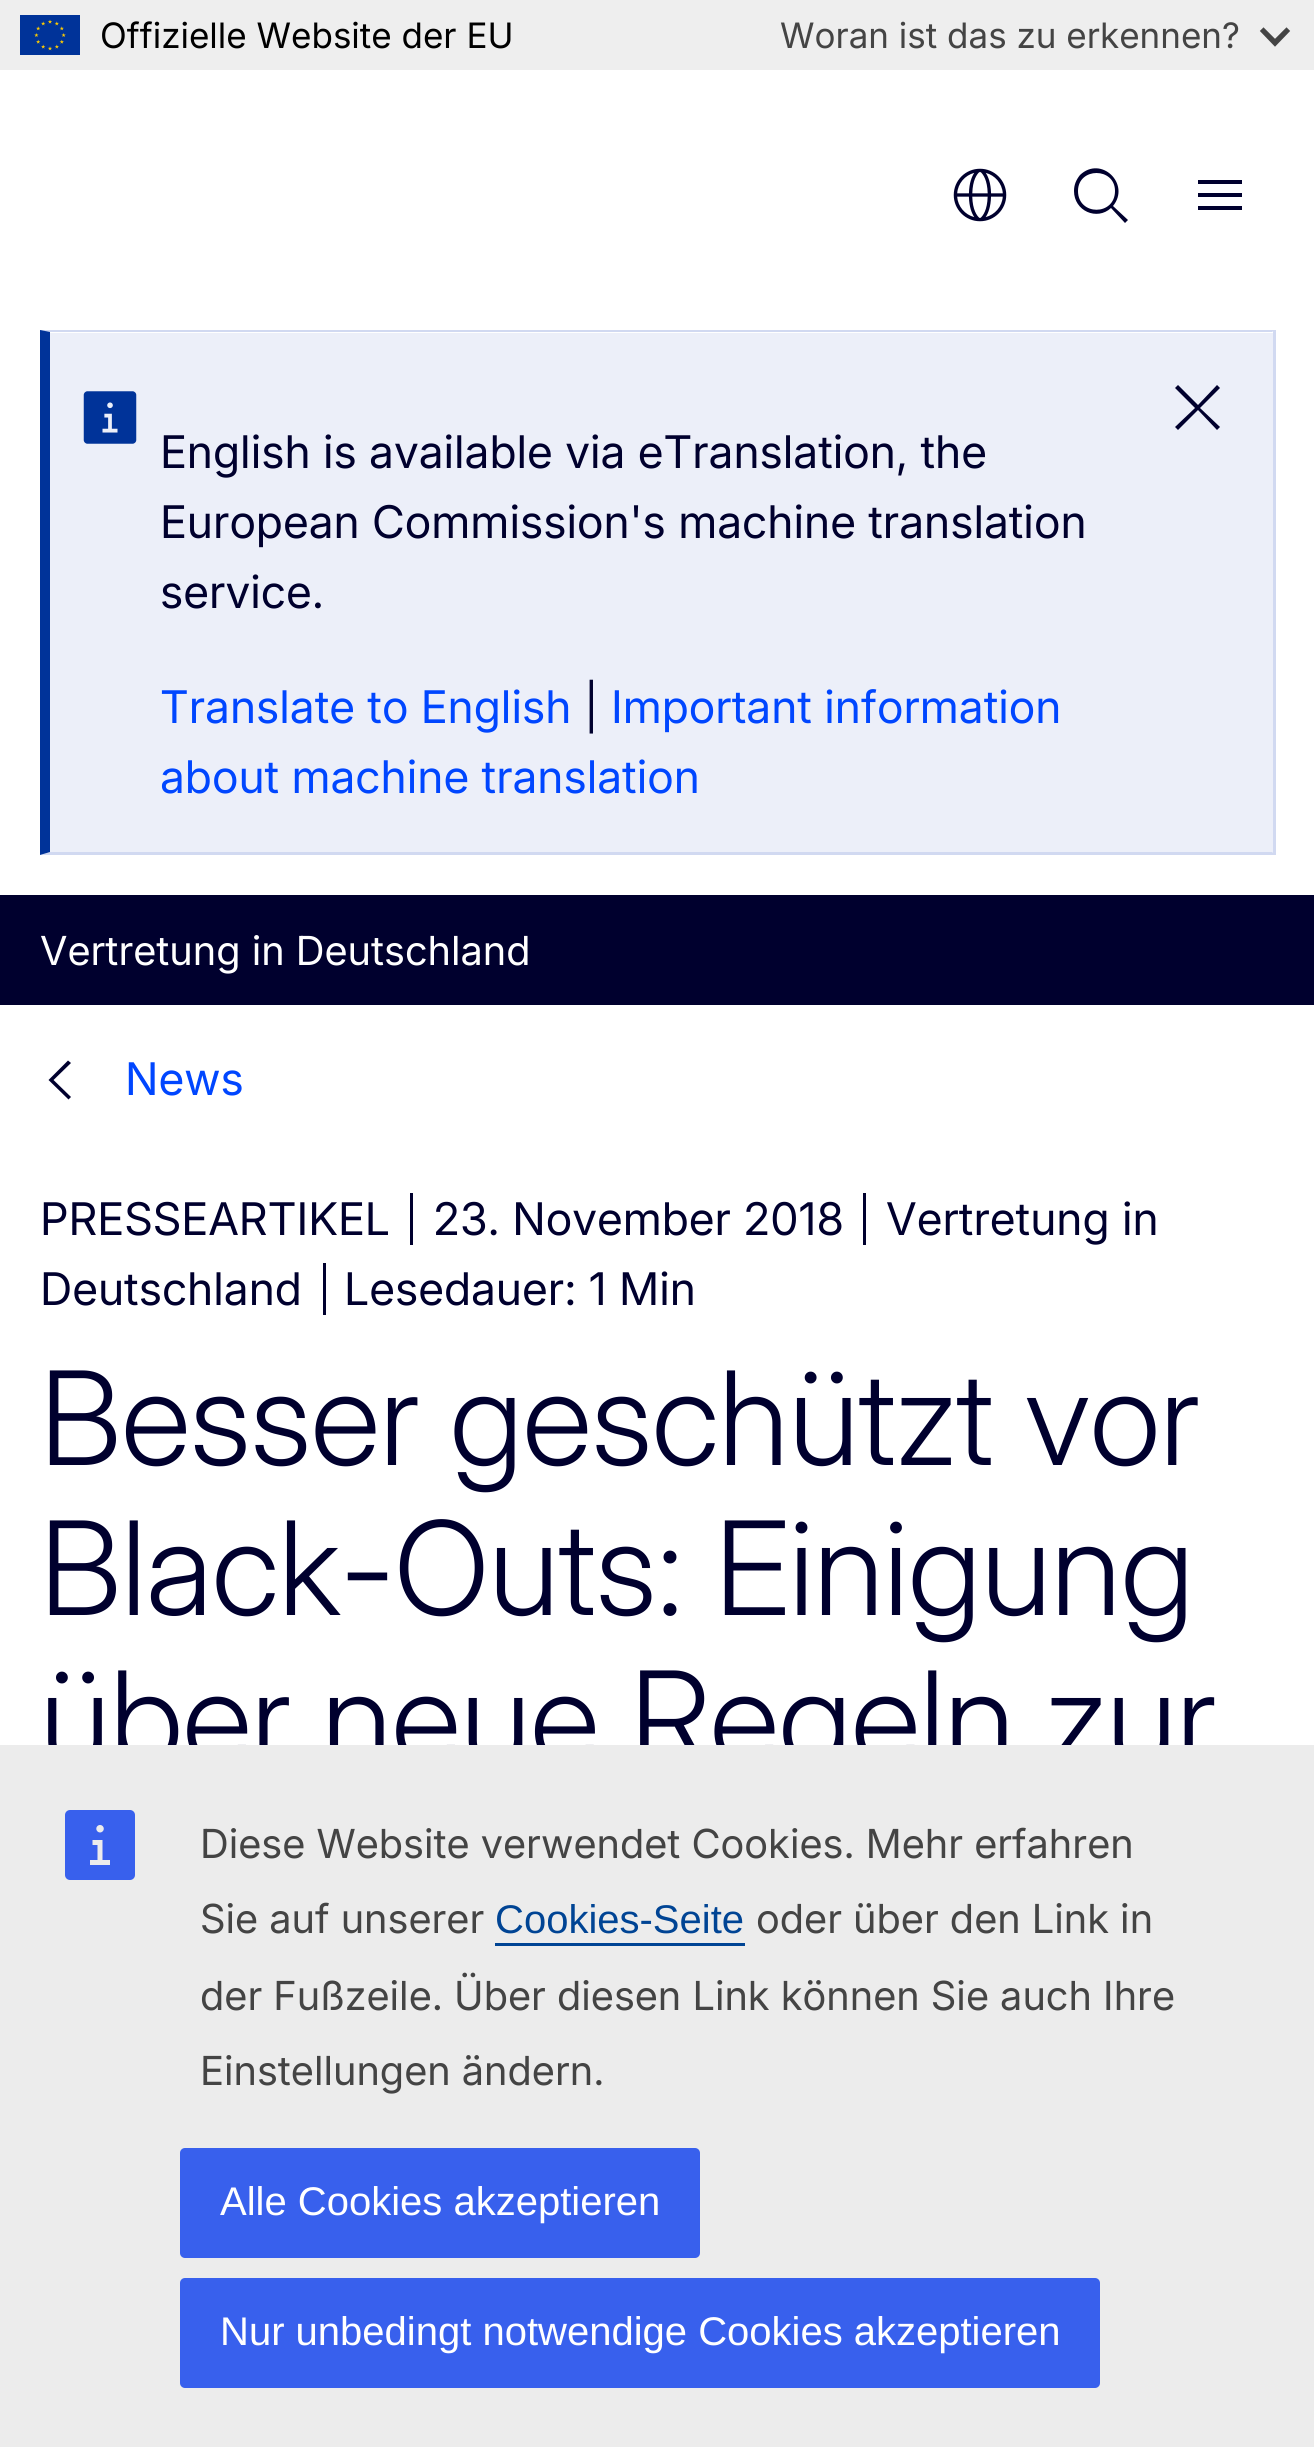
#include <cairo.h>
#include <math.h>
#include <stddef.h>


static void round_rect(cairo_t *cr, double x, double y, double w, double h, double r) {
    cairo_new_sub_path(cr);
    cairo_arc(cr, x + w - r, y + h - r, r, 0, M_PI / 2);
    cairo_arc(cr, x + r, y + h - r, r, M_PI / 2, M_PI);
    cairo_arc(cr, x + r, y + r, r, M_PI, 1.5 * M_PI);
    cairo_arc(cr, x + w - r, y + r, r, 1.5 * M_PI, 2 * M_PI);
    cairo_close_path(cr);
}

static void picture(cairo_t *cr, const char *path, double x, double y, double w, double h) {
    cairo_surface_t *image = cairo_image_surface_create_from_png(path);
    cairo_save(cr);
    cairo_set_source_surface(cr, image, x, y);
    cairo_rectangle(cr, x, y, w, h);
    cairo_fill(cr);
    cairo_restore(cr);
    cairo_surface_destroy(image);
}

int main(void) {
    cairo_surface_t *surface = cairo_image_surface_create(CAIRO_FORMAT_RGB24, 1314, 2447);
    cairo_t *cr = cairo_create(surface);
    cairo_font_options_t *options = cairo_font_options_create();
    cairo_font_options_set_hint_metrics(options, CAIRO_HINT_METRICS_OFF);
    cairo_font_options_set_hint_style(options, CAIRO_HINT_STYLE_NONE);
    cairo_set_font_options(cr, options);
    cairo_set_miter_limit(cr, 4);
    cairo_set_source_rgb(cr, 1, 1, 1);
    cairo_paint(cr);
    cairo_set_source_rgb(cr, 0.933, 0.933, 0.933);
    cairo_rectangle(cr, 0, 0, 1314, 70);
    cairo_fill(cr);
    picture(cr, "img1.png", 20, 15, 60, 40);
    cairo_select_font_face(cr, "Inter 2", CAIRO_FONT_SLANT_NORMAL, CAIRO_FONT_WEIGHT_NORMAL);
    cairo_set_font_size(cr, 35);
    cairo_set_source_rgb(cr, 0, 0, 0);
    cairo_move_to(cr, 100, 48);
    cairo_show_text(cr, "Offizielle Website der EU");
    cairo_set_source_rgb(cr, 0.267, 0.267, 0.267);
    cairo_move_to(cr, 780, 48);
    cairo_show_text(cr, "Woran ist das zu erkennen?");
    cairo_new_path(cr);
    cairo_move_to(cr, 1262, 31);
    cairo_line_to(cr, 1263.5, 29.5);
    cairo_line_to(cr, 1275, 41);
    cairo_line_to(cr, 1286.5, 29.5);
    cairo_line_to(cr, 1288, 31);
    cairo_line_to(cr, 1275, 44.5);
    cairo_close_path(cr);
    cairo_set_line_width(cr, 3.1);
    cairo_stroke(cr);
    picture(cr, "img2.png", 953, 168, 54, 54);
    cairo_set_source_rgb(cr, 0, 0, 0.18);
    cairo_set_fill_rule(cr, CAIRO_FILL_RULE_EVEN_ODD);
    cairo_new_path(cr);
    cairo_move_to(cr, 1074, 191);
    cairo_curve_to(cr, 1074, 185, 1076, 180, 1080, 175);
    cairo_curve_to(cr, 1101, 155, 1131, 184, 1113, 206);
    cairo_line_to(cr, 1128, 220);
    cairo_line_to(cr, 1125, 223);
    cairo_line_to(cr, 1111, 208);
    cairo_curve_to(cr, 1097, 221, 1074, 211, 1074, 191);
    cairo_move_to(cr, 1115, 191);
    cairo_curve_to(cr, 1115, 167, 1078, 167, 1078, 191);
    cairo_curve_to(cr, 1078, 216, 1115, 216, 1115, 191);
    cairo_fill(cr);
    cairo_new_path(cr);
    cairo_move_to(cr, 1242, 180);
    cairo_line_to(cr, 1198, 180);
    cairo_line_to(cr, 1198, 184);
    cairo_line_to(cr, 1242, 184);
    cairo_close_path(cr);
    cairo_move_to(cr, 1242, 206);
    cairo_line_to(cr, 1198, 206);
    cairo_line_to(cr, 1198, 210);
    cairo_line_to(cr, 1242, 210);
    cairo_close_path(cr);
    cairo_move_to(cr, 1198, 193);
    cairo_line_to(cr, 1242, 193);
    cairo_line_to(cr, 1242, 197);
    cairo_line_to(cr, 1198, 197);
    cairo_close_path(cr);
    cairo_fill(cr);
    cairo_set_source_rgb(cr, 0.925, 0.937, 0.976);
    cairo_rectangle(cr, 50, 333, 1223, 520);
    cairo_fill(cr);
    cairo_set_source_rgb(cr, 0.82, 0.851, 0.945);
    cairo_set_fill_rule(cr, CAIRO_FILL_RULE_WINDING);
    cairo_new_path(cr);
    cairo_move_to(cr, 40, 330);
    cairo_line_to(cr, 1275, 330);
    cairo_line_to(cr, 1272, 332);
    cairo_line_to(cr, 50, 332);
    cairo_close_path(cr);
    cairo_fill(cr);
    cairo_rectangle(cr, 1273, 330, 3, 525);
    cairo_fill(cr);
    cairo_new_path(cr);
    cairo_move_to(cr, 1275, 855);
    cairo_line_to(cr, 40, 855);
    cairo_line_to(cr, 50, 852);
    cairo_line_to(cr, 1272, 852);
    cairo_close_path(cr);
    cairo_fill(cr);
    cairo_set_source_rgb(cr, 0, 0.2, 0.6);
    cairo_new_path(cr);
    cairo_move_to(cr, 40, 855);
    cairo_line_to(cr, 40, 330);
    cairo_line_to(cr, 50, 332);
    cairo_line_to(cr, 50, 852);
    cairo_close_path(cr);
    cairo_fill(cr);
    picture(cr, "img3.png", 83, 391, 54, 53);
    cairo_set_source_rgb(cr, 0, 0, 0.18);
    cairo_set_fill_rule(cr, CAIRO_FILL_RULE_EVEN_ODD);
    cairo_new_path(cr);
    cairo_move_to(cr, 1220, 388);
    cairo_line_to(cr, 1217, 385);
    cairo_line_to(cr, 1198, 405);
    cairo_line_to(cr, 1178, 385);
    cairo_line_to(cr, 1175, 388);
    cairo_line_to(cr, 1195, 408);
    cairo_line_to(cr, 1175, 427);
    cairo_line_to(cr, 1178, 430);
    cairo_line_to(cr, 1198, 410);
    cairo_line_to(cr, 1217, 430);
    cairo_line_to(cr, 1220, 427);
    cairo_line_to(cr, 1200, 408);
    cairo_close_path(cr);
    cairo_fill(cr);
    cairo_select_font_face(cr, "Inter", CAIRO_FONT_SLANT_NORMAL, CAIRO_FONT_WEIGHT_NORMAL);
    cairo_set_font_size(cr, 45);
    cairo_move_to(cr, 160, 468);
    cairo_show_text(cr, "English is available via eTranslation, the");
    cairo_move_to(cr, 160, 538);
    cairo_show_text(cr, "European Commission's machine translation");
    cairo_move_to(cr, 160, 608);
    cairo_show_text(cr, "service.");
    cairo_set_source_rgb(cr, 0, 0.275, 1);
    cairo_move_to(cr, 160, 723);
    cairo_show_text(cr, "Translate to English");
    cairo_set_source_rgb(cr, 0, 0, 0.18);
    cairo_move_to(cr, 584, 723);
    cairo_show_text(cr, "|");
    cairo_set_source_rgb(cr, 0, 0.275, 1);
    cairo_move_to(cr, 611, 723);
    cairo_show_text(cr, "Important information");
    cairo_move_to(cr, 160, 793);
    cairo_show_text(cr, "about machine translation");
    cairo_set_source_rgb(cr, 0, 0, 0.18);
    cairo_rectangle(cr, 0, 895, 1314, 110);
    cairo_fill(cr);
    cairo_select_font_face(cr, "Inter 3", CAIRO_FONT_SLANT_NORMAL, CAIRO_FONT_WEIGHT_NORMAL);
    cairo_set_font_size(cr, 40);
    cairo_set_source_rgb(cr, 1, 1, 1);
    cairo_move_to(cr, 40, 965);
    cairo_show_text(cr, "Vertretung in Deutschland");
    cairo_set_source_rgb(cr, 0, 0, 0.18);
    cairo_set_fill_rule(cr, CAIRO_FILL_RULE_WINDING);
    cairo_new_path(cr);
    cairo_move_to(cr, 68, 1060.5);
    cairo_line_to(cr, 71, 1063);
    cairo_line_to(cr, 53.5, 1080);
    cairo_line_to(cr, 71, 1097);
    cairo_line_to(cr, 68.5, 1099.5);
    cairo_line_to(cr, 48.5, 1080);
    cairo_close_path(cr);
    cairo_fill(cr);
    cairo_select_font_face(cr, "Inter", CAIRO_FONT_SLANT_NORMAL, CAIRO_FONT_WEIGHT_NORMAL);
    cairo_set_font_size(cr, 45);
    cairo_set_source_rgb(cr, 0, 0.275, 1);
    cairo_move_to(cr, 125, 1095);
    cairo_show_text(cr, "News");
    cairo_set_source_rgb(cr, 0, 0, 0.18);
    cairo_move_to(cr, 40, 1235);
    cairo_show_text(cr, "PRESSEARTIKEL");
    cairo_rectangle(cr, 410, 1193, 3, 52);
    cairo_fill(cr);
    cairo_move_to(cr, 433, 1235);
    cairo_show_text(cr, "23. November 2018");
    cairo_rectangle(cr, 863, 1193, 3, 52);
    cairo_fill(cr);
    cairo_move_to(cr, 886, 1235);
    cairo_show_text(cr, "Vertretung in");
    cairo_move_to(cr, 40, 1305);
    cairo_show_text(cr, "Deutschland");
    cairo_rectangle(cr, 323, 1263, 3, 52);
    cairo_fill(cr);
    cairo_move_to(cr, 344, 1305);
    cairo_show_text(cr, "Lesedauer: 1 Min");
    cairo_select_font_face(cr, "Inter Light", CAIRO_FONT_SLANT_NORMAL, CAIRO_FONT_WEIGHT_NORMAL);
    cairo_set_font_size(cr, 130);
    cairo_move_to(cr, 40, 1465);
    cairo_show_text(cr, "Besser geschützt vor");
    cairo_move_to(cr, 40, 1615);
    cairo_show_text(cr, "Black-Outs: Einigung");
    cairo_move_to(cr, 40, 1765);
    cairo_show_text(cr, "über neue Regeln zur");
    cairo_set_source_rgb(cr, 0.922, 0.922, 0.922);
    cairo_rectangle(cr, 0, 1745, 1314, 702);
    cairo_fill(cr);
    picture(cr, "img4.png", 65, 1810, 70, 70);
    cairo_select_font_face(cr, "Inter 3", CAIRO_FONT_SLANT_NORMAL, CAIRO_FONT_WEIGHT_NORMAL);
    cairo_set_font_size(cr, 40);
    cairo_set_source_rgb(cr, 0.267, 0.267, 0.267);
    cairo_move_to(cr, 200, 1858);
    cairo_show_text(cr, "Diese Website verwendet Cookies. Mehr erfahren");
    cairo_move_to(cr, 200, 1933);
    cairo_show_text(cr, "Sie auf unserer");
    cairo_select_font_face(cr, "Liberation Sans", CAIRO_FONT_SLANT_NORMAL, CAIRO_FONT_WEIGHT_NORMAL);
    cairo_set_source_rgb(cr, 0, 0.267, 0.58);
    cairo_move_to(cr, 495, 1933);
    cairo_show_text(cr, "Cookies-Seite");
    cairo_rectangle(cr, 495, 1943, 250, 3);
    cairo_fill(cr);
    cairo_select_font_face(cr, "Inter 3", CAIRO_FONT_SLANT_NORMAL, CAIRO_FONT_WEIGHT_NORMAL);
    cairo_set_source_rgb(cr, 0.267, 0.267, 0.267);
    cairo_move_to(cr, 756, 1933);
    cairo_show_text(cr, "oder über den Link in");
    cairo_move_to(cr, 200, 2010);
    cairo_show_text(cr, "der Fußzeile. Über diesen Link können Sie auch Ihre");
    cairo_move_to(cr, 200, 2085);
    cairo_show_text(cr, "Einstellungen ändern.");
    cairo_set_source_rgb(cr, 0.22, 0.376, 0.929);
    round_rect(cr, 180, 2148, 520, 110, 5);
    cairo_fill(cr);
    cairo_select_font_face(cr, "Liberation Sans", CAIRO_FONT_SLANT_NORMAL, CAIRO_FONT_WEIGHT_NORMAL);
    cairo_set_source_rgb(cr, 1, 1, 1);
    cairo_move_to(cr, 220, 2215);
    cairo_show_text(cr, "Alle Cookies akzeptieren");
    cairo_set_source_rgb(cr, 0.22, 0.376, 0.929);
    round_rect(cr, 180, 2278, 920, 110, 5);
    cairo_fill(cr);
    cairo_set_source_rgb(cr, 1, 1, 1);
    cairo_move_to(cr, 220, 2345);
    cairo_show_text(cr, "Nur unbedingt notwendige Cookies akzeptieren");
    cairo_surface_write_to_png(surface, "page.png");
    cairo_font_options_destroy(options);
    cairo_destroy(cr);
    cairo_surface_destroy(surface);
    return 0;
}
